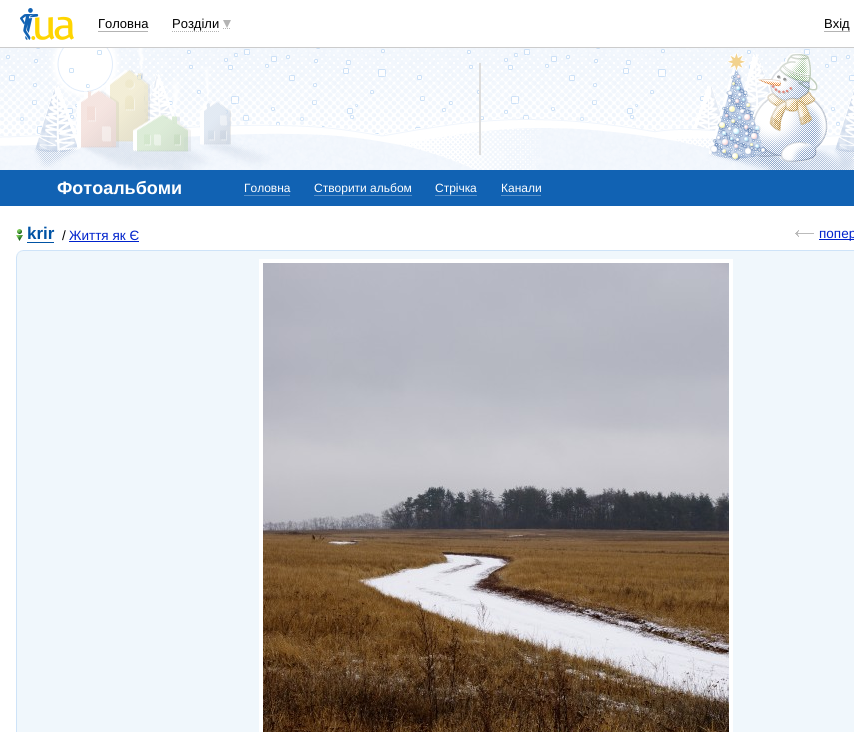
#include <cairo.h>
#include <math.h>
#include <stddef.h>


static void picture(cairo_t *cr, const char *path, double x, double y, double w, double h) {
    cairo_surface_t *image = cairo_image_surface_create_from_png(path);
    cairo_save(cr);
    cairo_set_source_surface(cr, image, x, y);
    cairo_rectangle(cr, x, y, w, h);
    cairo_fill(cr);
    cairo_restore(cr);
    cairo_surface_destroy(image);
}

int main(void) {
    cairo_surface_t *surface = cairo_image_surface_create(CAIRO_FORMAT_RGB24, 854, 732);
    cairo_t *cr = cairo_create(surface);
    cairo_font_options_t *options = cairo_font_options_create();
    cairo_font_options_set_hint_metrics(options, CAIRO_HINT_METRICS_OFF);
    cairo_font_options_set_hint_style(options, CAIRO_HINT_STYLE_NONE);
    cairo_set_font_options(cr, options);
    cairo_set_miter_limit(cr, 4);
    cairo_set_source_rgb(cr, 1, 1, 1);
    cairo_paint(cr);
    cairo_set_source_rgb(cr, 0.8, 0.8, 0.8);
    cairo_rectangle(cr, 0, 47, 854, 1);
    cairo_fill(cr);
    picture(cr, "img1.png", 20, 8, 54, 32);
    cairo_select_font_face(cr, "Liberation Sans", CAIRO_FONT_SLANT_NORMAL, CAIRO_FONT_WEIGHT_NORMAL);
    cairo_set_font_size(cr, 13);
    cairo_set_source_rgb(cr, 0, 0, 0);
    cairo_move_to(cr, 98, 28);
    cairo_show_text(cr, "Головна");
    cairo_set_source_rgb(cr, 0.702, 0.702, 0.702);
    cairo_rectangle(cr, 98, 31, 50, 1);
    cairo_fill(cr);
    cairo_new_path(cr);
    cairo_move_to(cr, 172, 31.5);
    cairo_line_to(cr, 219, 31.5);
    cairo_move_to(cr, 223, 28.5);
    cairo_line_to(cr, 231, 28.5);
    cairo_set_line_width(cr, 1);
    cairo_set_dash(cr, (double[]){1, 1}, 2, 0);
    cairo_stroke(cr);
    cairo_set_source_rgb(cr, 0, 0, 0);
    cairo_move_to(cr, 172, 28);
    cairo_show_text(cr, "Розділи");
    cairo_set_source_rgb(cr, 0.702, 0.702, 0.702);
    cairo_new_path(cr);
    cairo_move_to(cr, 223, 20);
    cairo_line_to(cr, 231, 20);
    cairo_line_to(cr, 227, 28);
    cairo_close_path(cr);
    cairo_fill(cr);
    cairo_set_source_rgb(cr, 0, 0, 0);
    cairo_move_to(cr, 824, 28);
    cairo_show_text(cr, "Вхід");
    cairo_set_source_rgb(cr, 0.702, 0.702, 0.702);
    cairo_rectangle(cr, 824, 31, 26, 1);
    cairo_fill(cr);
    picture(cr, "img2.png", 0, 48, 854, 122);
    cairo_set_source_rgb(cr, 0.867, 0.867, 0.867);
    cairo_rectangle(cr, 479, 63, 2, 92);
    cairo_fill(cr);
    cairo_set_source_rgb(cr, 0.067, 0.384, 0.702);
    cairo_rectangle(cr, 0, 170, 854, 36);
    cairo_fill(cr);
    cairo_select_font_face(cr, "Liberation Sans", CAIRO_FONT_SLANT_NORMAL, CAIRO_FONT_WEIGHT_BOLD);
    cairo_set_font_size(cr, 18);
    cairo_set_source_rgb(cr, 1, 1, 1);
    cairo_move_to(cr, 57, 194);
    cairo_show_text(cr, "Фотоальбоми");
    cairo_select_font_face(cr, "Liberation Sans", CAIRO_FONT_SLANT_NORMAL, CAIRO_FONT_WEIGHT_NORMAL);
    cairo_set_font_size(cr, 12);
    cairo_move_to(cr, 244, 192);
    cairo_show_text(cr, "Головна");
    cairo_set_source_rgb(cr, 0.345, 0.569, 0.792);
    cairo_rectangle(cr, 244, 195, 46, 1);
    cairo_fill(cr);
    cairo_set_source_rgb(cr, 1, 1, 1);
    cairo_move_to(cr, 314, 192);
    cairo_show_text(cr, "Створити альбом");
    cairo_set_source_rgb(cr, 0.345, 0.569, 0.792);
    cairo_rectangle(cr, 314, 195, 98, 1);
    cairo_fill(cr);
    cairo_set_source_rgb(cr, 1, 1, 1);
    cairo_move_to(cr, 435, 192);
    cairo_show_text(cr, "Стрічка");
    cairo_set_source_rgb(cr, 0.345, 0.569, 0.792);
    cairo_rectangle(cr, 435, 195, 42, 1);
    cairo_fill(cr);
    cairo_set_source_rgb(cr, 1, 1, 1);
    cairo_move_to(cr, 501, 192);
    cairo_show_text(cr, "Канали");
    cairo_set_source_rgb(cr, 0.345, 0.569, 0.792);
    cairo_rectangle(cr, 501, 195, 40, 1);
    cairo_fill(cr);
    cairo_set_source_rgb(cr, 0, 0.325, 0.647);
    cairo_rectangle(cr, 27, 242, 27, 1);
    cairo_fill(cr);
    picture(cr, "img3.png", 16, 229, 7, 12);
    cairo_select_font_face(cr, "Liberation Sans", CAIRO_FONT_SLANT_NORMAL, CAIRO_FONT_WEIGHT_BOLD);
    cairo_set_font_size(cr, 17);
    cairo_move_to(cr, 27, 239);
    cairo_show_text(cr, "krir");
    cairo_select_font_face(cr, "Liberation Sans", CAIRO_FONT_SLANT_NORMAL, CAIRO_FONT_WEIGHT_NORMAL);
    cairo_set_font_size(cr, 13.5);
    cairo_set_source_rgb(cr, 0, 0, 0);
    cairo_move_to(cr, 62, 240);
    cairo_show_text(cr, "/");
    cairo_set_source_rgb(cr, 0, 0.133, 0.8);
    cairo_move_to(cr, 69, 240);
    cairo_show_text(cr, "Життя як Є");
    cairo_rectangle(cr, 69, 241, 70, 1);
    cairo_fill(cr);
    picture(cr, "img4.png", 795, 230, 19, 7);
    cairo_rectangle(cr, 819, 239, 35, 1);
    cairo_fill(cr);
    cairo_move_to(cr, 819, 238);
    cairo_show_text(cr, "попер");
    cairo_set_source_rgb(cr, 0.941, 0.965, 0.988);
    cairo_rectangle(cr, 16.5, 250.5, 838, 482);
    cairo_fill_preserve(cr);
    cairo_set_source_rgb(cr, 0.808, 0.89, 0.969);
    cairo_set_dash(cr, NULL, 0, 0);
    cairo_stroke(cr);
    cairo_rectangle(cr, 261, 261, 470, 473);
    cairo_set_source_rgb(cr, 1, 1, 1);
    cairo_set_line_width(cr, 4);
    cairo_stroke(cr);
    picture(cr, "img5.png", 263, 263, 466, 469);
    picture(cr, "img6.png", 16, 250, 7, 7);
    cairo_surface_write_to_png(surface, "page.png");
    cairo_font_options_destroy(options);
    cairo_destroy(cr);
    cairo_surface_destroy(surface);
    return 0;
}
